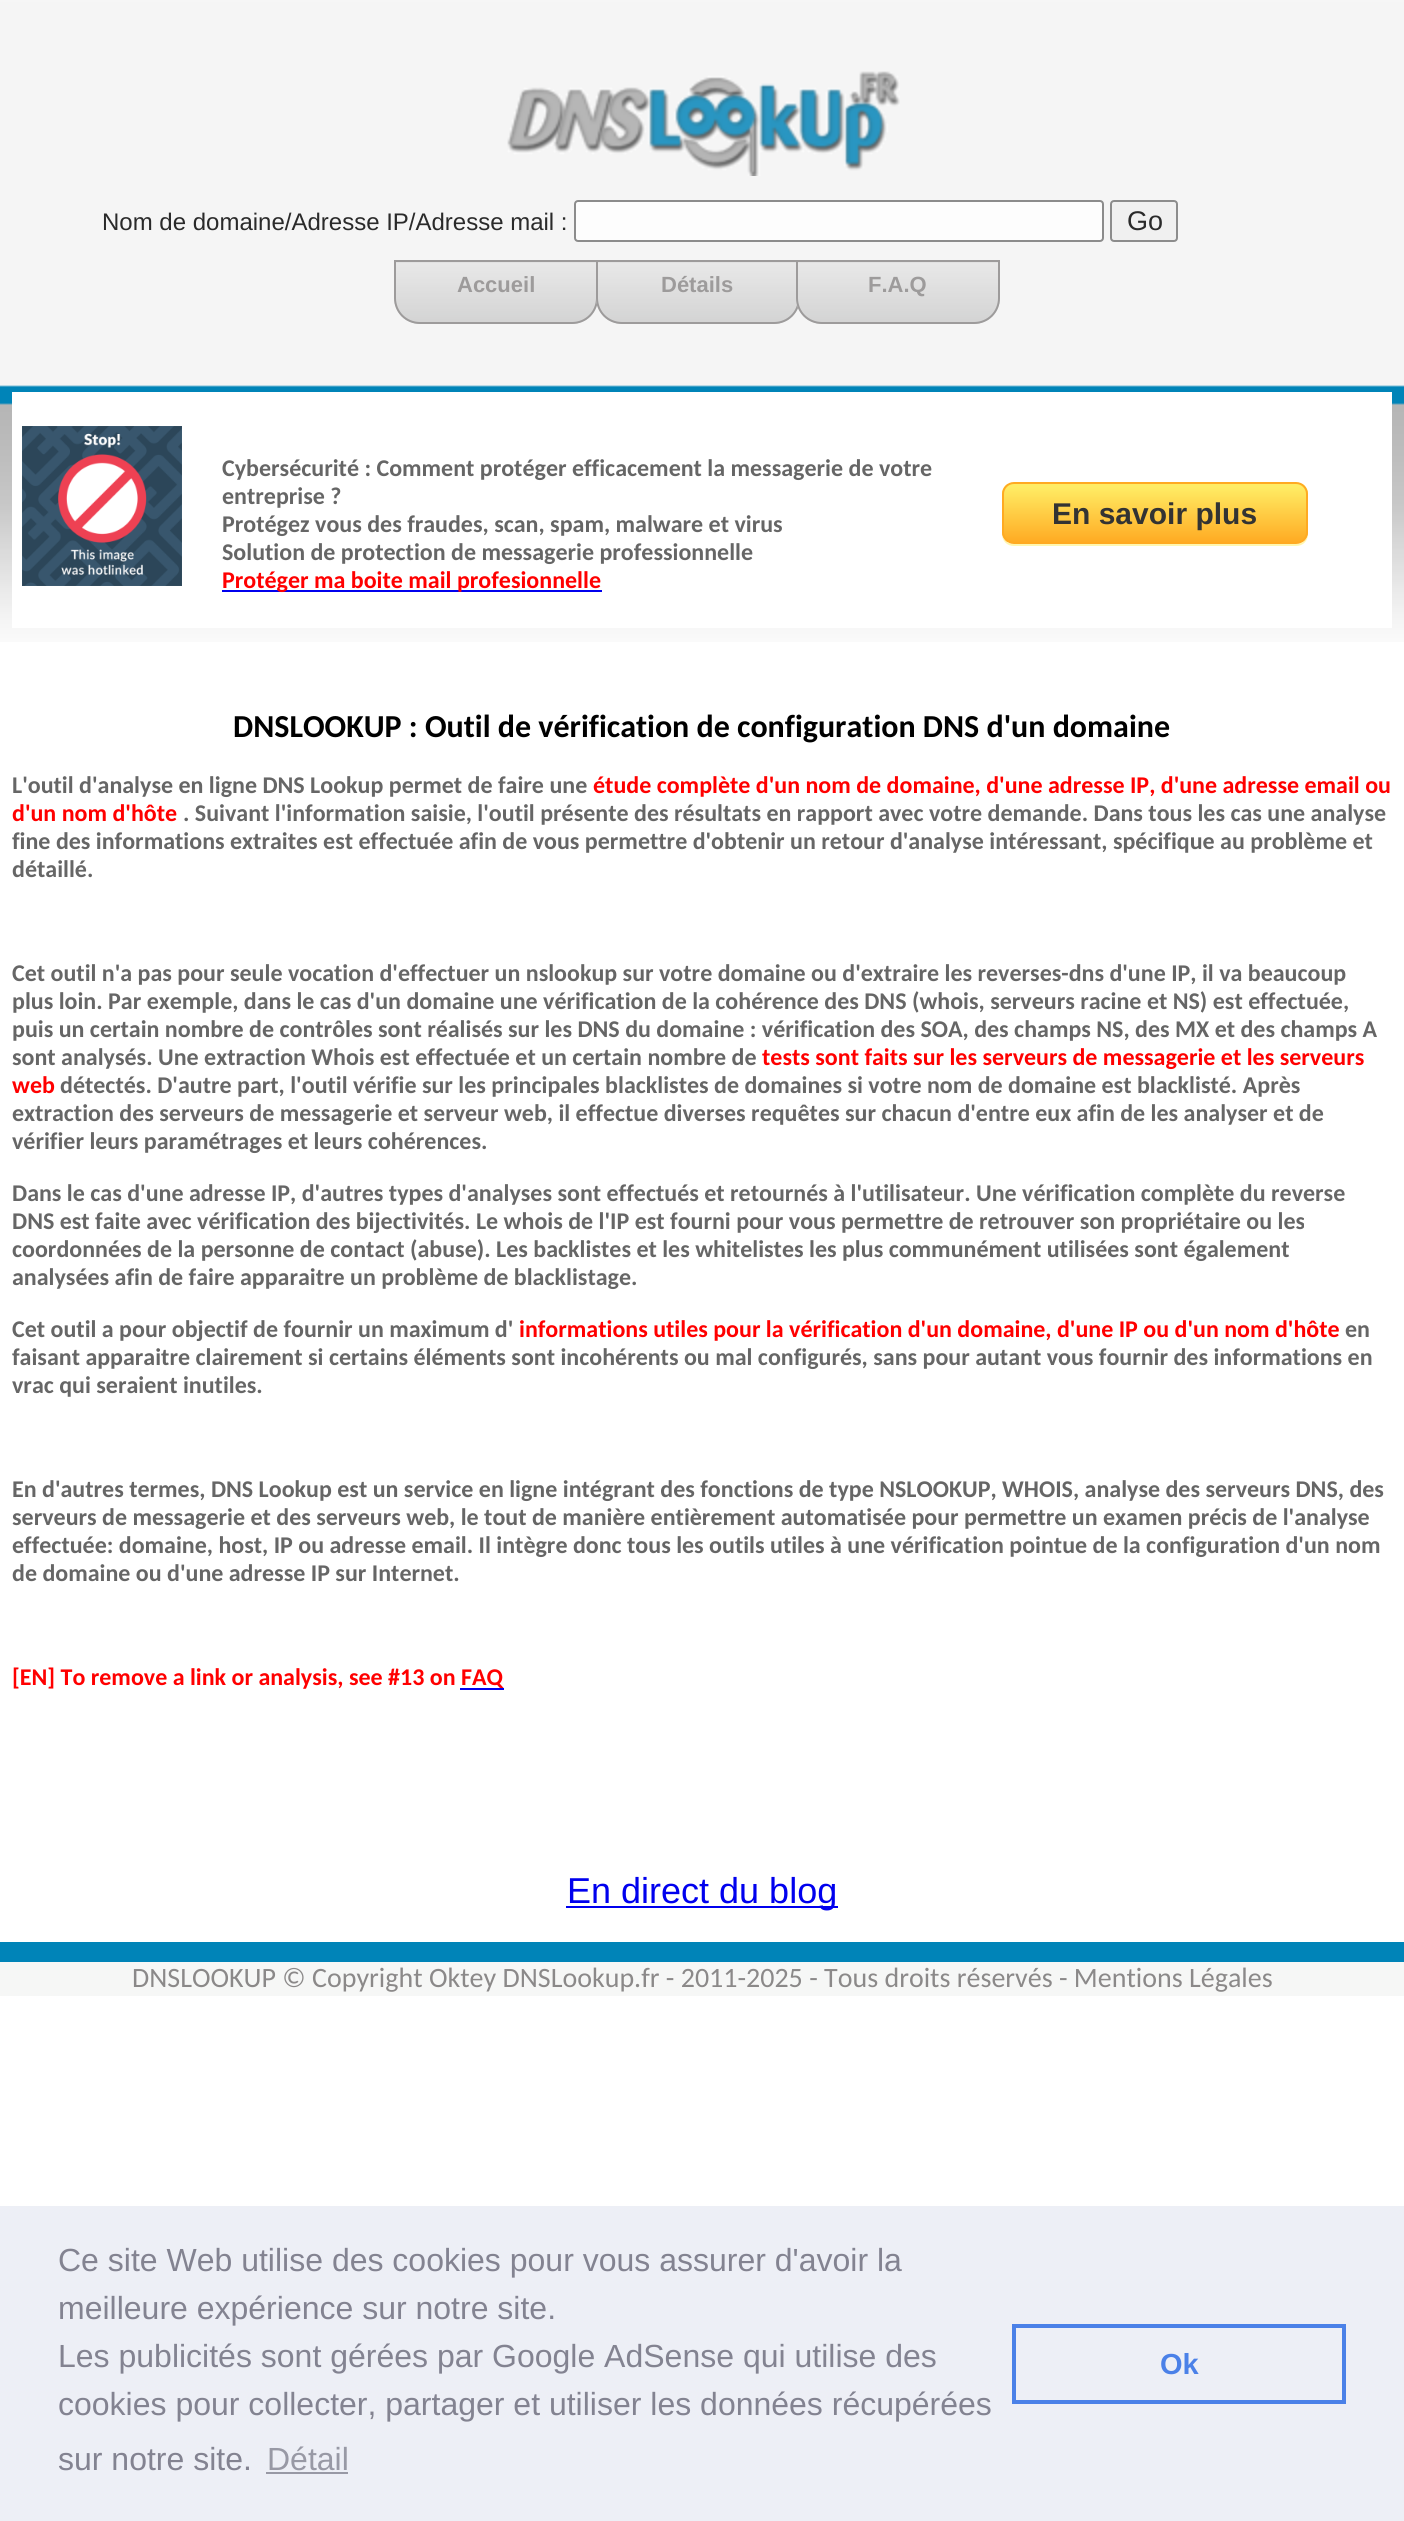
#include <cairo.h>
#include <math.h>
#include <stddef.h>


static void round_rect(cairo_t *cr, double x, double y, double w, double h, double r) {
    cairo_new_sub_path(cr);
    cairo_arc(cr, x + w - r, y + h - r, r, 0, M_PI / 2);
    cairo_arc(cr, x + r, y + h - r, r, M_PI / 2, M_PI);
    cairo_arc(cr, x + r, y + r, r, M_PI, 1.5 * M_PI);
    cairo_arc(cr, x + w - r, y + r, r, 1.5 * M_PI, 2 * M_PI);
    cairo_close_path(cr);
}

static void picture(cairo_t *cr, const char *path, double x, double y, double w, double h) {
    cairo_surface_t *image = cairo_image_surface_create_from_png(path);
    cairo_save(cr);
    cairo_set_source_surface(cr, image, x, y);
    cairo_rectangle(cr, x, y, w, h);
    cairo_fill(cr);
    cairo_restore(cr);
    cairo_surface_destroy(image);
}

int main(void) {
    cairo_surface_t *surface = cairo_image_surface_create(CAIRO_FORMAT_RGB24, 1404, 2521);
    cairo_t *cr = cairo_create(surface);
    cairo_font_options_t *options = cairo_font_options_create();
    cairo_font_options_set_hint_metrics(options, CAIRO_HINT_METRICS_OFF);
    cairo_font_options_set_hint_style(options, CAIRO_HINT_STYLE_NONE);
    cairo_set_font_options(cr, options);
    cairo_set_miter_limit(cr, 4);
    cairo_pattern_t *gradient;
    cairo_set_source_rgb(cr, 1, 1, 1);
    cairo_paint(cr);
    picture(cr, "img1.png", 0, 0, 1404, 642);
    picture(cr, "img2.png", 507, 71, 393, 105);
    cairo_select_font_face(cr, "Liberation Sans", CAIRO_FONT_SLANT_NORMAL, CAIRO_FONT_WEIGHT_NORMAL);
    cairo_set_font_size(cr, 24);
    cairo_set_source_rgb(cr, 0.165, 0.165, 0.165);
    cairo_move_to(cr, 102, 230);
    cairo_show_text(cr, "Nom de domaine/Adresse IP/Adresse mail :");
    cairo_set_source_rgb(cr, 0.992, 0.992, 0.992);
    round_rect(cr, 575, 201, 528, 40, 3);
    cairo_fill_preserve(cr);
    cairo_set_source_rgb(cr, 0.549, 0.549, 0.549);
    cairo_stroke(cr);
    cairo_set_source_rgb(cr, 0.941, 0.941, 0.941);
    round_rect(cr, 1111, 201, 66, 40, 3);
    cairo_fill_preserve(cr);
    cairo_set_source_rgb(cr, 0.549, 0.549, 0.549);
    cairo_stroke(cr);
    cairo_set_font_size(cr, 27);
    cairo_set_source_rgb(cr, 0.165, 0.165, 0.165);
    cairo_move_to(cr, 1127, 230);
    cairo_show_text(cr, "Go");
    picture(cr, "img3.png", 394, 262, 203, 62);
    cairo_new_path(cr);
    cairo_move_to(cr, 395, 261);
    cairo_line_to(cr, 597, 261);
    cairo_line_to(cr, 597, 298);
    cairo_curve_to(cr, 597, 312, 586, 323, 572, 323);
    cairo_line_to(cr, 420, 323);
    cairo_curve_to(cr, 406, 323, 395, 312, 395, 298);
    cairo_close_path(cr);
    cairo_set_source_rgb(cr, 0.616, 0.608, 0.608);
    cairo_stroke(cr);
    cairo_select_font_face(cr, "Liberation Sans", CAIRO_FONT_SLANT_NORMAL, CAIRO_FONT_WEIGHT_BOLD);
    cairo_set_font_size(cr, 22);
    cairo_move_to(cr, 457, 292);
    cairo_show_text(cr, "Accueil");
    picture(cr, "img4.png", 596, 262, 202, 62);
    cairo_new_path(cr);
    cairo_move_to(cr, 597, 261);
    cairo_line_to(cr, 799, 261);
    cairo_line_to(cr, 799, 298);
    cairo_curve_to(cr, 799, 312, 788, 323, 774, 323);
    cairo_line_to(cr, 622, 323);
    cairo_curve_to(cr, 608, 323, 597, 312, 597, 298);
    cairo_close_path(cr);
    cairo_stroke(cr);
    cairo_move_to(cr, 661, 292);
    cairo_show_text(cr, "Détails");
    picture(cr, "img5.png", 796, 262, 204, 62);
    cairo_new_path(cr);
    cairo_move_to(cr, 797, 261);
    cairo_line_to(cr, 999, 261);
    cairo_line_to(cr, 999, 298);
    cairo_curve_to(cr, 999, 312, 988, 323, 974, 323);
    cairo_line_to(cr, 822, 323);
    cairo_curve_to(cr, 808, 323, 797, 312, 797, 298);
    cairo_close_path(cr);
    cairo_stroke(cr);
    cairo_move_to(cr, 868, 292);
    cairo_show_text(cr, "F.A.Q");
    cairo_set_source_rgb(cr, 1, 1, 1);
    cairo_rectangle(cr, 12, 392, 1380, 236);
    cairo_fill(cr);
    picture(cr, "img6.png", 22, 426, 160, 160);
    cairo_select_font_face(cr, "Carlito", CAIRO_FONT_SLANT_NORMAL, CAIRO_FONT_WEIGHT_BOLD);
    cairo_set_font_size(cr, 24);
    cairo_set_source_rgb(cr, 0.4, 0.4, 0.4);
    cairo_move_to(cr, 222, 476);
    cairo_show_text(cr, "Cybersécurité : Comment protéger efficacement la messagerie de votre");
    cairo_move_to(cr, 222, 504);
    cairo_show_text(cr, "entreprise ?");
    cairo_move_to(cr, 222, 532);
    cairo_show_text(cr, "Protégez vous des fraudes, scan, spam, malware et virus");
    cairo_move_to(cr, 222, 560);
    cairo_show_text(cr, "Solution de protection de messagerie professionnelle");
    cairo_set_source_rgb(cr, 0, 0, 0.933);
    cairo_rectangle(cr, 222, 590, 380, 2);
    cairo_fill(cr);
    cairo_set_source_rgb(cr, 1, 0, 0);
    cairo_move_to(cr, 222, 588);
    cairo_show_text(cr, "Protéger ma boite mail profesionnelle");
    cairo_set_source_rgb(cr, 1, 0.965, 0.686);
    cairo_new_path(cr);
    cairo_move_to(cr, 1002, 532);
    cairo_line_to(cr, 1002, 534);
    cairo_curve_to(cr, 1002, 541, 1007, 546, 1014, 546);
    cairo_line_to(cr, 1296, 546);
    cairo_curve_to(cr, 1303, 546, 1308, 541, 1308, 534);
    cairo_line_to(cr, 1308, 532);
    cairo_curve_to(cr, 1308, 539, 1303, 544, 1296, 544);
    cairo_line_to(cr, 1014, 544);
    cairo_curve_to(cr, 1007, 544, 1002, 539, 1002, 532);
    cairo_close_path(cr);
    cairo_fill(cr);
    cairo_save(cr);
    round_rect(cr, 1002, 482, 306, 62, 12);
    cairo_clip(cr);
    gradient = cairo_pattern_create_linear(1155, 484, 1155, 542);
    cairo_pattern_add_color_stop_rgba(gradient, 0.05, 1, 0.925, 0.392, 1);
    cairo_pattern_add_color_stop_rgba(gradient, 1, 1, 0.671, 0.137, 1);
    cairo_set_source(cr, gradient);
    cairo_pattern_destroy(gradient);
    cairo_rectangle(cr, 1002, 484, 306, 58);
    cairo_fill(cr);
    cairo_restore(cr);
    round_rect(cr, 1003, 483, 304, 60, 11);
    cairo_set_source_rgb(cr, 1, 0.667, 0.133);
    cairo_stroke(cr);
    cairo_select_font_face(cr, "Liberation Sans", CAIRO_FONT_SLANT_NORMAL, CAIRO_FONT_WEIGHT_BOLD);
    cairo_set_font_size(cr, 30);
    cairo_set_source_rgb(cr, 0.2, 0.2, 0.2);
    cairo_move_to(cr, 1052, 524);
    cairo_show_text(cr, "En savoir plus");
    cairo_select_font_face(cr, "Carlito", CAIRO_FONT_SLANT_NORMAL, CAIRO_FONT_WEIGHT_BOLD);
    cairo_set_font_size(cr, 32);
    cairo_set_source_rgb(cr, 0, 0, 0);
    cairo_move_to(cr, 233, 737);
    cairo_show_text(cr, "DNSLOOKUP : Outil de vérification de configuration DNS d'un domaine");
    cairo_set_font_size(cr, 24);
    cairo_set_source_rgb(cr, 0.4, 0.4, 0.4);
    cairo_move_to(cr, 12, 793);
    cairo_show_text(cr, "L'outil d'analyse en ligne DNS Lookup permet de faire une");
    cairo_set_source_rgb(cr, 1, 0, 0);
    cairo_move_to(cr, 593, 793);
    cairo_show_text(cr, "étude complète d'un nom de domaine, d'une adresse IP, d'une adresse email ou");
    cairo_move_to(cr, 12, 821);
    cairo_show_text(cr, "d'un nom d'hôte");
    cairo_set_source_rgb(cr, 0.4, 0.4, 0.4);
    cairo_move_to(cr, 183, 821);
    cairo_show_text(cr, ". Suivant l'information saisie, l'outil présente des résultats en rapport avec votre demande. Dans tous les cas une analyse");
    cairo_move_to(cr, 12, 849);
    cairo_show_text(cr, "fine des informations extraites est effectuée afin de vous permettre d'obtenir un retour d'analyse intéressant, spécifique au problème et");
    cairo_move_to(cr, 12, 877);
    cairo_show_text(cr, "détaillé.");
    cairo_move_to(cr, 12, 981);
    cairo_show_text(cr, "Cet outil n'a pas pour seule vocation d'effectuer un nslookup sur votre domaine ou d'extraire les reverses-dns d'une IP, il va beaucoup");
    cairo_move_to(cr, 12, 1009);
    cairo_show_text(cr, "plus loin. Par exemple, dans le cas d'un domaine une vérification de la cohérence des DNS (whois, serveurs racine et NS) est effectuée,");
    cairo_move_to(cr, 12, 1037);
    cairo_show_text(cr, "puis un certain nombre de contrôles sont réalisés sur les DNS du domaine : vérification des SOA, des champs NS, des MX et des champs A");
    cairo_move_to(cr, 12, 1065);
    cairo_show_text(cr, "sont analysés. Une extraction Whois est effectuée et un certain nombre de");
    cairo_set_source_rgb(cr, 1, 0, 0);
    cairo_move_to(cr, 762, 1065);
    cairo_show_text(cr, "tests sont faits sur les serveurs de messagerie et les serveurs");
    cairo_move_to(cr, 12, 1093);
    cairo_show_text(cr, "web");
    cairo_set_source_rgb(cr, 0.4, 0.4, 0.4);
    cairo_move_to(cr, 60, 1093);
    cairo_show_text(cr, "détectés. D'autre part, l'outil vérifie sur les principales blacklistes de domaines si votre nom de domaine est blacklisté. Après");
    cairo_move_to(cr, 12, 1121);
    cairo_show_text(cr, "extraction des serveurs de messagerie et serveur web, il effectue diverses requêtes sur chacun d'entre eux afin de les analyser et de");
    cairo_move_to(cr, 12, 1149);
    cairo_show_text(cr, "vérifier leurs paramétrages et leurs cohérences.");
    cairo_move_to(cr, 12, 1201);
    cairo_show_text(cr, "Dans le cas d'une adresse IP, d'autres types d'analyses sont effectués et retournés à l'utilisateur. Une vérification complète du reverse");
    cairo_move_to(cr, 12, 1229);
    cairo_show_text(cr, "DNS est faite avec vérification des bijectivités. Le whois de l'IP est fourni pour vous permettre de retrouver son propriétaire ou les");
    cairo_move_to(cr, 12, 1257);
    cairo_show_text(cr, "coordonnées de la personne de contact (abuse). Les backlistes et les whitelistes les plus communément utilisées sont également");
    cairo_move_to(cr, 12, 1285);
    cairo_show_text(cr, "analysées afin de faire apparaitre un problème de blacklistage.");
    cairo_move_to(cr, 12, 1337);
    cairo_show_text(cr, "Cet outil a pour objectif de fournir un maximum d'");
    cairo_set_source_rgb(cr, 1, 0, 0);
    cairo_move_to(cr, 519, 1337);
    cairo_show_text(cr, "informations utiles pour la vérification d'un domaine, d'une IP ou d'un nom d'hôte");
    cairo_set_source_rgb(cr, 0.4, 0.4, 0.4);
    cairo_move_to(cr, 1345, 1337);
    cairo_show_text(cr, "en");
    cairo_move_to(cr, 12, 1365);
    cairo_show_text(cr, "faisant apparaitre clairement si certains éléments sont incohérents ou mal configurés, sans pour autant vous fournir des informations en");
    cairo_move_to(cr, 12, 1393);
    cairo_show_text(cr, "vrac qui seraient inutiles.");
    cairo_move_to(cr, 12, 1497);
    cairo_show_text(cr, "En d'autres termes, DNS Lookup est un service en ligne intégrant des fonctions de type NSLOOKUP, WHOIS, analyse des serveurs DNS, des");
    cairo_move_to(cr, 12, 1525);
    cairo_show_text(cr, "serveurs de messagerie et des serveurs web, le tout de manière entièrement automatisée pour permettre un examen précis de l'analyse");
    cairo_move_to(cr, 12, 1553);
    cairo_show_text(cr, "effectuée: domaine, host, IP ou adresse email. Il intègre donc tous les outils utiles à une vérification pointue de la configuration d'un nom");
    cairo_move_to(cr, 12, 1581);
    cairo_show_text(cr, "de domaine ou d'une adresse IP sur Internet.");
    cairo_set_source_rgb(cr, 1, 0, 0);
    cairo_move_to(cr, 12, 1685);
    cairo_show_text(cr, "[EN] To remove a link or analysis, see #13 on FAQ");
    cairo_set_source_rgb(cr, 0, 0, 0.933);
    cairo_rectangle(cr, 460, 1688, 44, 2);
    cairo_fill(cr);
    cairo_rectangle(cr, 566, 1906, 272, 2);
    cairo_fill(cr);
    cairo_select_font_face(cr, "Liberation Sans", CAIRO_FONT_SLANT_NORMAL, CAIRO_FONT_WEIGHT_NORMAL);
    cairo_set_font_size(cr, 36);
    cairo_move_to(cr, 567, 1903);
    cairo_show_text(cr, "En direct du blog");
    cairo_set_source_rgb(cr, 0.961, 0.965, 0.961);
    cairo_rectangle(cr, 0, 1962, 1404, 34);
    cairo_fill(cr);
    cairo_set_source_rgb(cr, 0, 0.518, 0.722);
    cairo_rectangle(cr, 0, 1942, 1404, 20);
    cairo_fill(cr);
    cairo_select_font_face(cr, "Carlito", CAIRO_FONT_SLANT_NORMAL, CAIRO_FONT_WEIGHT_NORMAL);
    cairo_set_font_size(cr, 28);
    cairo_set_source_rgb(cr, 0.545, 0.537, 0.537);
    cairo_move_to(cr, 132, 1987);
    cairo_show_text(cr, "DNSLOOKUP © Copyright Oktey DNSLookup.fr - 2011-2025 - Tous droits réservés - Mentions Légales");
    cairo_set_source_rgb(cr, 0.929, 0.937, 0.961);
    cairo_rectangle(cr, 0, 2206, 1404, 315);
    cairo_fill(cr);
    cairo_select_font_face(cr, "Liberation Sans", CAIRO_FONT_SLANT_NORMAL, CAIRO_FONT_WEIGHT_NORMAL);
    cairo_set_font_size(cr, 32);
    cairo_set_source_rgb(cr, 0.514, 0.514, 0.569);
    cairo_move_to(cr, 58, 2271);
    cairo_show_text(cr, "Ce site Web utilise des cookies pour vous assurer d'avoir la");
    cairo_move_to(cr, 58, 2319);
    cairo_show_text(cr, "meilleure expérience sur notre site.");
    cairo_move_to(cr, 58, 2367);
    cairo_show_text(cr, "Les publicités sont gérées par Google AdSense qui utilise des");
    cairo_move_to(cr, 58, 2415);
    cairo_show_text(cr, "cookies pour collecter, partager et utiliser les données récupérées");
    cairo_move_to(cr, 58, 2470);
    cairo_show_text(cr, "sur notre site.");
    cairo_set_source_rgb(cr, 0.596, 0.6, 0.647);
    cairo_move_to(cr, 267, 2470);
    cairo_show_text(cr, "Détail");
    cairo_rectangle(cr, 266, 2472, 82, 2);
    cairo_fill(cr);
    cairo_rectangle(cr, 1014, 2326, 330, 76);
    cairo_set_source_rgb(cr, 0.294, 0.506, 0.91);
    cairo_set_line_width(cr, 4);
    cairo_stroke(cr);
    cairo_select_font_face(cr, "Liberation Sans", CAIRO_FONT_SLANT_NORMAL, CAIRO_FONT_WEIGHT_BOLD);
    cairo_set_font_size(cr, 29);
    cairo_move_to(cr, 1160, 2374);
    cairo_show_text(cr, "Ok");
    cairo_surface_write_to_png(surface, "page.png");
    cairo_font_options_destroy(options);
    cairo_destroy(cr);
    cairo_surface_destroy(surface);
    return 0;
}
